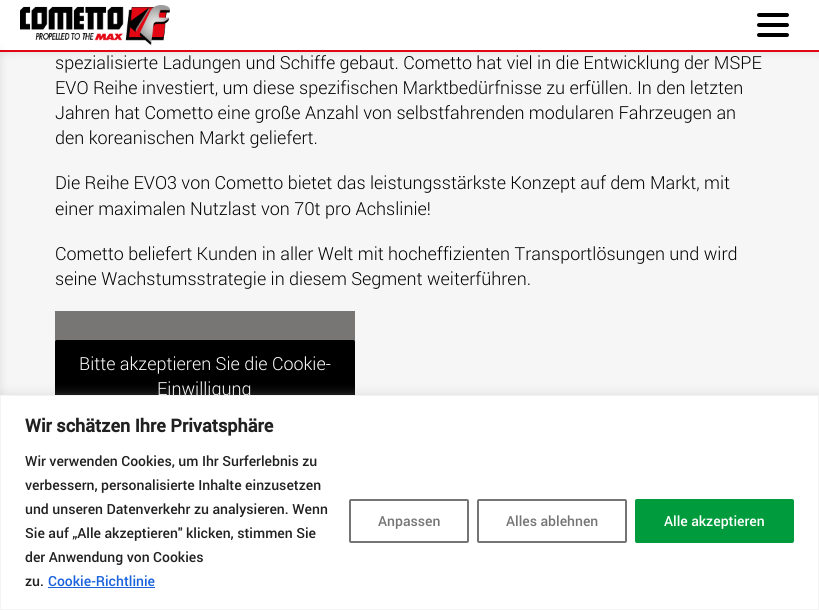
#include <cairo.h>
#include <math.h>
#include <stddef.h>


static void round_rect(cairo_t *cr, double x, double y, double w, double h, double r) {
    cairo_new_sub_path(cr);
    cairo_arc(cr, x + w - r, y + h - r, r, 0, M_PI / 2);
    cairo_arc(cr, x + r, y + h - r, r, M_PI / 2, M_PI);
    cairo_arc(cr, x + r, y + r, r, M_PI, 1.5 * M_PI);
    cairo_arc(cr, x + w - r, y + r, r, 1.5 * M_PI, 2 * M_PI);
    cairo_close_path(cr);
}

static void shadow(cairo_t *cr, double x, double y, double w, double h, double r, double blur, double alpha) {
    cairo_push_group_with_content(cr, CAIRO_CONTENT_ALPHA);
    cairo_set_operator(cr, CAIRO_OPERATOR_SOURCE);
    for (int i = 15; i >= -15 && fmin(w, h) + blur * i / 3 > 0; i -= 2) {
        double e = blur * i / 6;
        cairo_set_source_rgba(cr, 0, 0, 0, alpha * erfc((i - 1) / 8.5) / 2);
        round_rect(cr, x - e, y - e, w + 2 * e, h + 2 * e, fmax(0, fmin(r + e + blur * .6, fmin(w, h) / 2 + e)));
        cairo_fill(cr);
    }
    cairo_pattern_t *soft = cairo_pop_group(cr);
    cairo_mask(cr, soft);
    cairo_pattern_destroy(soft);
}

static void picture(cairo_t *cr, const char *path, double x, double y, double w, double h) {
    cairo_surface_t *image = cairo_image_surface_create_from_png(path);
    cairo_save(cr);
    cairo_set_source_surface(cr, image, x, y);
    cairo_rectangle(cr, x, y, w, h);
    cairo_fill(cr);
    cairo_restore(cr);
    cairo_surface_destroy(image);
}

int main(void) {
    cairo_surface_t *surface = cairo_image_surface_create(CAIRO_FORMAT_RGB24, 819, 610);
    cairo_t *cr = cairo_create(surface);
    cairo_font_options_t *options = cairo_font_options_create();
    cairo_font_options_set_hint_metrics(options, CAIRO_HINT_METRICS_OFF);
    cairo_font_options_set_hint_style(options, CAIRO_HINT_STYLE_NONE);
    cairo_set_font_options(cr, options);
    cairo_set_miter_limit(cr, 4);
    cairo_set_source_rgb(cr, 0.961, 0.961, 0.961);
    cairo_paint(cr);
    cairo_set_source_rgb(cr, 0, 0, 0);
    shadow(cr, 0, 0, 819, 52, 0, 5, 0.1);
    cairo_set_source_rgb(cr, 1, 1, 1);
    cairo_rectangle(cr, 0, 0, 819, 50);
    cairo_fill(cr);
    cairo_set_source_rgb(cr, 0.89, 0.024, 0.075);
    cairo_rectangle(cr, 0, 50, 819, 2);
    cairo_fill(cr);
    picture(cr, "img1.png", 20, 5, 150, 40);
    cairo_set_source_rgb(cr, 0, 0, 0);
    round_rect(cr, 757, 13, 32, 4, 2);
    cairo_fill(cr);
    round_rect(cr, 757, 23, 32, 4, 2);
    cairo_fill(cr);
    round_rect(cr, 757, 33, 32, 4, 2);
    cairo_fill(cr);
    cairo_set_source_rgb(cr, 0, 0, 0);
    shadow(cr, -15, 52, 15, 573, 0, 5, 0.1);
    cairo_select_font_face(cr, "Roboto Light", CAIRO_FONT_SLANT_NORMAL, CAIRO_FONT_WEIGHT_NORMAL);
    cairo_set_font_size(cr, 18);
    cairo_set_source_rgb(cr, 0, 0, 0);
    cairo_move_to(cr, 55, 69);
    cairo_show_text(cr, "spezialisierte Ladungen und Schiffe gebaut. Cometto hat viel in die Entwicklung der MSPE");
    cairo_move_to(cr, 55, 94);
    cairo_show_text(cr, "EVO Reihe investiert, um diese spezifischen Marktbedürfnisse zu erfüllen. In den letzten");
    cairo_move_to(cr, 55, 119);
    cairo_show_text(cr, "Jahren hat Cometto eine große Anzahl von selbstfahrenden modularen Fahrzeugen an");
    cairo_move_to(cr, 55, 144);
    cairo_show_text(cr, "den koreanischen Markt geliefert.");
    cairo_move_to(cr, 55, 189);
    cairo_show_text(cr, "Die Reihe EVO3 von Cometto bietet das leistungsstärkste Konzept auf dem Markt, mit");
    cairo_move_to(cr, 55, 215);
    cairo_show_text(cr, "einer maximalen Nutzlast von 70t pro Achslinie!");
    cairo_move_to(cr, 55, 260);
    cairo_show_text(cr, "Cometto beliefert Kunden in aller Welt mit hocheffizienten Transportlösungen und wird");
    cairo_move_to(cr, 55, 285);
    cairo_show_text(cr, "seine Wachstumsstrategie in diesem Segment weiterführen.");
    cairo_set_source_rgb(cr, 0.471, 0.459, 0.459);
    cairo_rectangle(cr, 55, 311, 300, 31);
    cairo_fill(cr);
    cairo_set_source_rgb(cr, 0, 0, 0);
    round_rect(cr, 55.5, 340.5, 299, 71, 1.5);
    cairo_fill_preserve(cr);
    cairo_set_line_width(cr, 1);
    cairo_stroke(cr);
    cairo_set_source_rgb(cr, 1, 1, 1);
    cairo_move_to(cr, 79, 370);
    cairo_show_text(cr, "Bitte akzeptieren Sie die Cookie-");
    cairo_move_to(cr, 157, 395);
    cairo_show_text(cr, "Einwilligung");
    cairo_set_source_rgb(cr, 0.675, 0.671, 0.671);
    shadow(cr, 0, 394, 819, 215, 0, 5, 0.3);
    cairo_set_source_rgb(cr, 1, 1, 1);
    cairo_rectangle(cr, 0.5, 395.5, 818, 214);
    cairo_fill_preserve(cr);
    cairo_set_source_rgb(cr, 0.957, 0.957, 0.957);
    cairo_stroke(cr);
    cairo_select_font_face(cr, "Roboto", CAIRO_FONT_SLANT_NORMAL, CAIRO_FONT_WEIGHT_BOLD);
    cairo_set_source_rgb(cr, 0.129, 0.129, 0.129);
    cairo_move_to(cr, 25, 432);
    cairo_show_text(cr, "Wir schätzen Ihre Privatsphäre");
    cairo_select_font_face(cr, "Roboto Medium", CAIRO_FONT_SLANT_NORMAL, CAIRO_FONT_WEIGHT_NORMAL);
    cairo_set_font_size(cr, 14);
    cairo_move_to(cr, 25, 466);
    cairo_show_text(cr, "Wir verwenden Cookies, um Ihr Surferlebnis zu");
    cairo_move_to(cr, 25, 490);
    cairo_show_text(cr, "verbessern, personalisierte Inhalte einzusetzen");
    cairo_move_to(cr, 25, 514);
    cairo_show_text(cr, "und unseren Datenverkehr zu analysieren. Wenn");
    cairo_move_to(cr, 25, 538);
    cairo_show_text(cr, "Sie auf „Alle akzeptieren\" klicken, stimmen Sie");
    cairo_move_to(cr, 25, 562);
    cairo_show_text(cr, "der Anwendung von Cookies");
    cairo_move_to(cr, 25, 586);
    cairo_show_text(cr, "zu.");
    cairo_set_source_rgb(cr, 0.094, 0.388, 0.863);
    cairo_move_to(cr, 48, 586);
    cairo_show_text(cr, "Cookie-Richtlinie");
    cairo_rectangle(cr, 48, 587, 107, 1);
    cairo_fill(cr);
    round_rect(cr, 350, 500, 118, 42, 1);
    cairo_set_source_rgb(cr, 0.459, 0.459, 0.459);
    cairo_set_line_width(cr, 2);
    cairo_stroke(cr);
    cairo_move_to(cr, 378, 526);
    cairo_show_text(cr, "Anpassen");
    round_rect(cr, 478, 500, 148, 42, 1);
    cairo_stroke(cr);
    cairo_move_to(cr, 506, 526);
    cairo_show_text(cr, "Alles ablehnen");
    cairo_set_source_rgb(cr, 0, 0.608, 0.235);
    round_rect(cr, 636, 500, 157, 42, 1);
    cairo_fill_preserve(cr);
    cairo_stroke(cr);
    cairo_set_source_rgb(cr, 1, 1, 1);
    cairo_move_to(cr, 664, 526);
    cairo_show_text(cr, "Alle akzeptieren");
    cairo_surface_write_to_png(surface, "page.png");
    cairo_font_options_destroy(options);
    cairo_destroy(cr);
    cairo_surface_destroy(surface);
    return 0;
}
